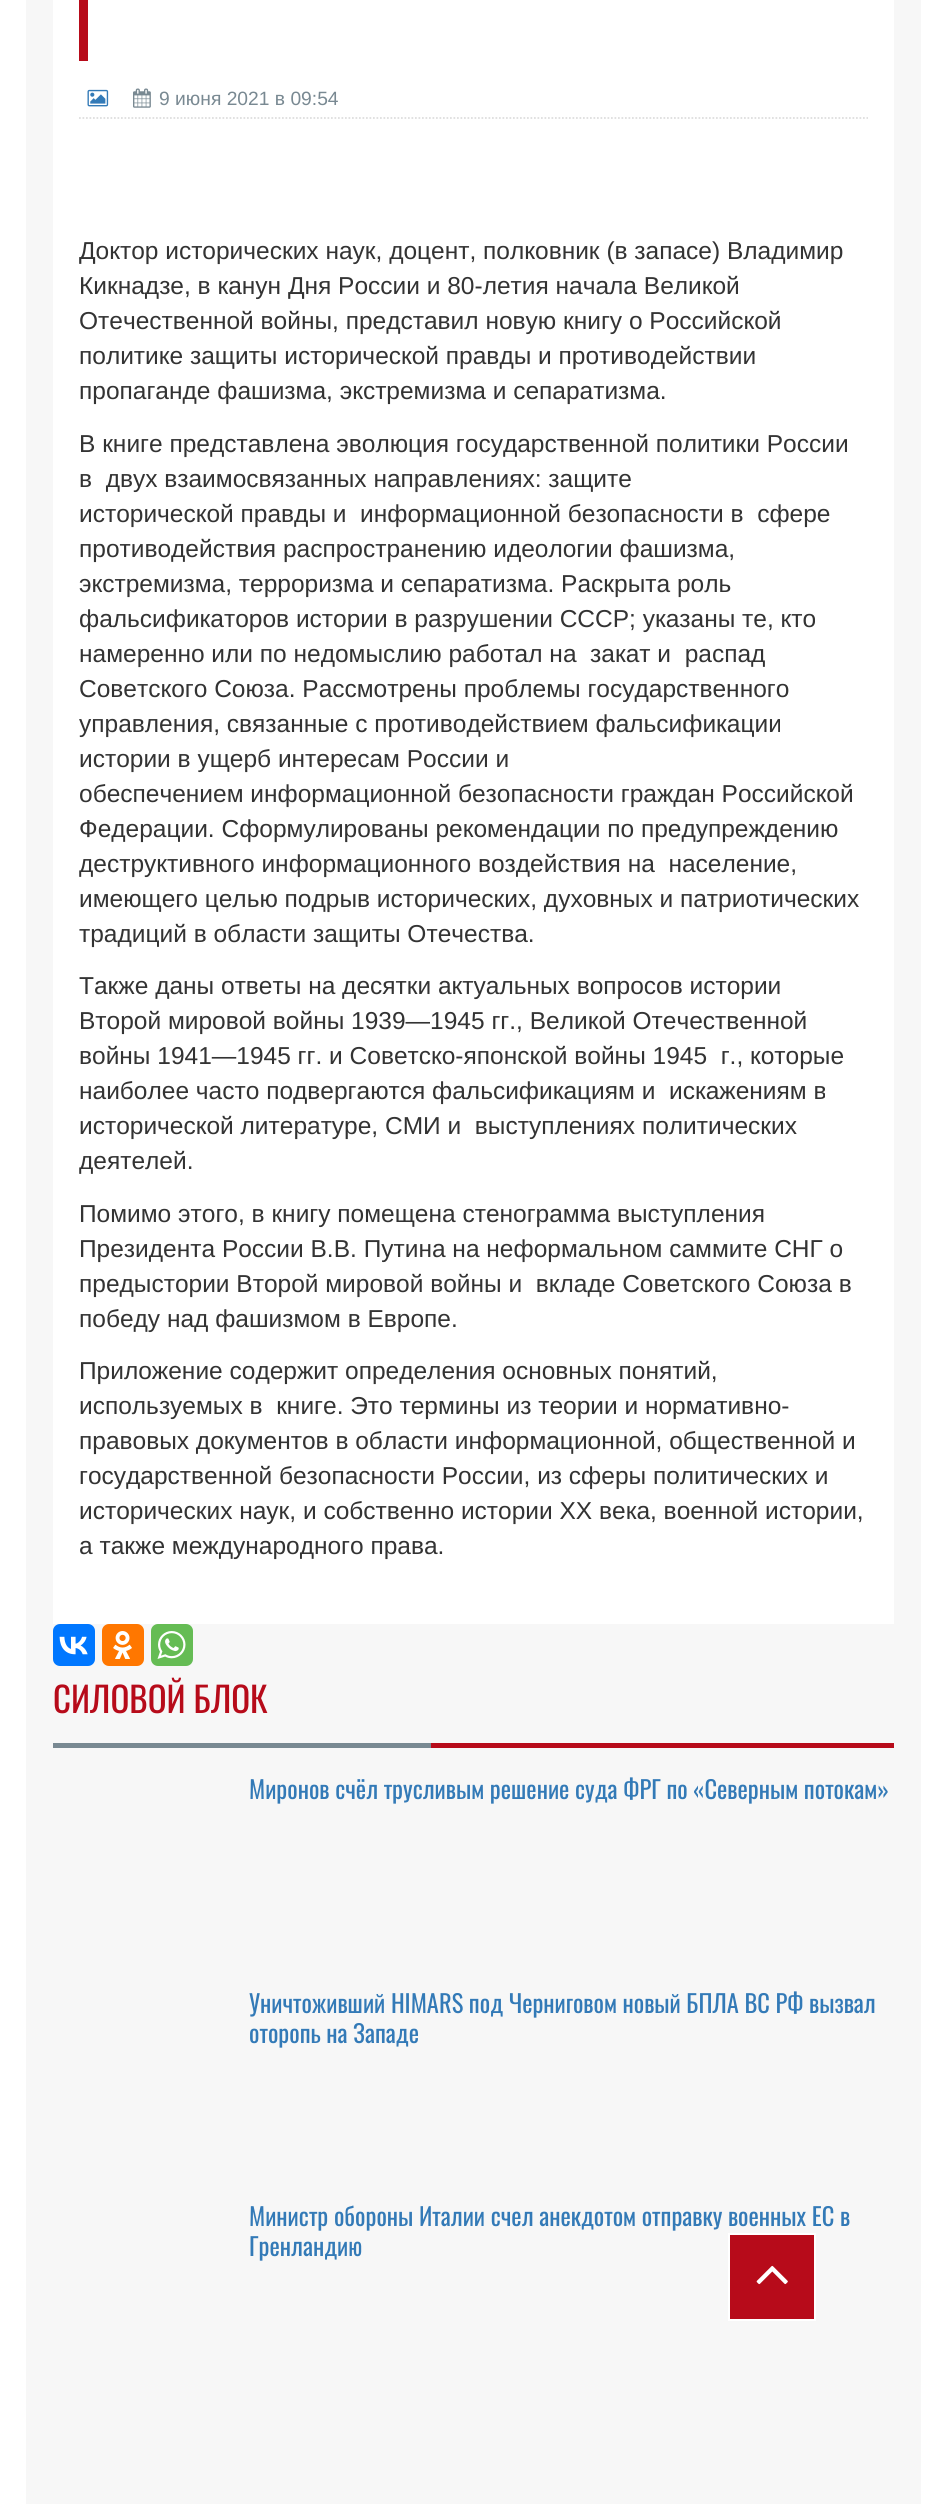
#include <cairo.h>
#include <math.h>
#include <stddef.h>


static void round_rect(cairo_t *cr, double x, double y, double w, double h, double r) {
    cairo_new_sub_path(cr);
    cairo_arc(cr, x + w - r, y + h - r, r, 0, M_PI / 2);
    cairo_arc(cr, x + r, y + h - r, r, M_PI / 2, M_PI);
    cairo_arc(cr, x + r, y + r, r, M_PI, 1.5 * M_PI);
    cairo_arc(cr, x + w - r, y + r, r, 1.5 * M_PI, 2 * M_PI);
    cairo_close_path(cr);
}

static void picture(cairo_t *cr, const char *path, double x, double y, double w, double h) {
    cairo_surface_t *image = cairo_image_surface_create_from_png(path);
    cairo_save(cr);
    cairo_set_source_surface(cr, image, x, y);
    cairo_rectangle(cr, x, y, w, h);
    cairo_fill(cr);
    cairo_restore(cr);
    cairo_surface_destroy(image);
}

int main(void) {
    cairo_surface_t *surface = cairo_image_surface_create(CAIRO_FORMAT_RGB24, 946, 2504);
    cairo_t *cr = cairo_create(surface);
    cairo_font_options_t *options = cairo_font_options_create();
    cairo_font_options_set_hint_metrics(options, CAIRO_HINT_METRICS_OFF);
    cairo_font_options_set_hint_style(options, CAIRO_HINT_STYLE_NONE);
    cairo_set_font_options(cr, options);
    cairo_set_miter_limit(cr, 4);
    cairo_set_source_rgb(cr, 1, 1, 1);
    cairo_paint(cr);
    cairo_set_source_rgb(cr, 0.965, 0.965, 0.965);
    cairo_rectangle(cr, 26, 0, 895, 2504);
    cairo_fill(cr);
    cairo_set_source_rgb(cr, 1, 1, 1);
    cairo_rectangle(cr, 53, 0, 841, 1624);
    cairo_fill(cr);
    cairo_set_source_rgb(cr, 0.718, 0.043, 0.102);
    cairo_rectangle(cr, 79, 0, 9, 61);
    cairo_fill(cr);
    cairo_new_path(cr);
    cairo_move_to(cr, 79, 118);
    cairo_line_to(cr, 868, 118);
    cairo_set_source_rgb(cr, 0.871, 0.871, 0.871);
    cairo_set_line_width(cr, 1.8);
    cairo_set_dash(cr, (double[]){1.75, 1.75}, 2, 0);
    cairo_stroke(cr);
    picture(cr, "img1.png", 87, 89, 22, 18);
    picture(cr, "img2.png", 133, 88, 18, 20);
    cairo_select_font_face(cr, "Liberation Sans", CAIRO_FONT_SLANT_NORMAL, CAIRO_FONT_WEIGHT_NORMAL);
    cairo_set_font_size(cr, 19.25);
    cairo_set_source_rgb(cr, 0.475, 0.537, 0.573);
    cairo_move_to(cr, 159, 105);
    cairo_show_text(cr, "9 июня 2021 в 09:54");
    cairo_set_font_size(cr, 24.5);
    cairo_set_source_rgb(cr, 0.2, 0.2, 0.2);
    cairo_move_to(cr, 79, 259);
    cairo_show_text(cr, "Доктор исторических наук, доцент, полковник (в запасе) Владимир");
    cairo_move_to(cr, 79, 294);
    cairo_show_text(cr, "Кикнадзе, в канун Дня России и 80-летия начала Великой");
    cairo_move_to(cr, 79, 329);
    cairo_show_text(cr, "Отечественной войны, представил новую книгу о Российской");
    cairo_move_to(cr, 79, 364);
    cairo_show_text(cr, "политике защиты исторической правды и противодействии");
    cairo_move_to(cr, 79, 399);
    cairo_show_text(cr, "пропаганде фашизма, экстремизма и сепаратизма.");
    cairo_move_to(cr, 79, 452);
    cairo_show_text(cr, "В книге представлена эволюция государственной политики России");
    cairo_move_to(cr, 79, 487);
    cairo_show_text(cr, "в  двух взаимосвязанных направлениях: защите");
    cairo_move_to(cr, 79, 522);
    cairo_show_text(cr, "исторической правды и  информационной безопасности в  сфере");
    cairo_move_to(cr, 79, 557);
    cairo_show_text(cr, "противодействия распространению идеологии фашизма,");
    cairo_move_to(cr, 79, 592);
    cairo_show_text(cr, "экстремизма, терроризма и сепаратизма. Раскрыта роль");
    cairo_move_to(cr, 79, 627);
    cairo_show_text(cr, "фальсификаторов истории в разрушении СССР; указаны те, кто");
    cairo_move_to(cr, 79, 662);
    cairo_show_text(cr, "намеренно или по недомыслию работал на  закат и  распад");
    cairo_move_to(cr, 79, 697);
    cairo_show_text(cr, "Советского Союза. Рассмотрены проблемы государственного");
    cairo_move_to(cr, 79, 732);
    cairo_show_text(cr, "управления, связанные с противодействием фальсификации");
    cairo_move_to(cr, 79, 767);
    cairo_show_text(cr, "истории в ущерб интересам России и");
    cairo_move_to(cr, 79, 802);
    cairo_show_text(cr, "обеспечением информационной безопасности граждан Российской");
    cairo_move_to(cr, 79, 837);
    cairo_show_text(cr, "Федерации. Сформулированы рекомендации по предупреждению");
    cairo_move_to(cr, 79, 872);
    cairo_show_text(cr, "деструктивного информационного воздействия на  население,");
    cairo_move_to(cr, 79, 907);
    cairo_show_text(cr, "имеющего целью подрыв исторических, духовных и патриотических");
    cairo_move_to(cr, 79, 942);
    cairo_show_text(cr, "традиций в области защиты Отечества.");
    cairo_move_to(cr, 79, 994);
    cairo_show_text(cr, "Также даны ответы на десятки актуальных вопросов истории");
    cairo_move_to(cr, 79, 1029);
    cairo_show_text(cr, "Второй мировой войны 1939—1945 гг., Великой Отечественной");
    cairo_move_to(cr, 79, 1064);
    cairo_show_text(cr, "войны 1941—1945 гг. и Советско-японской войны 1945  г., которые");
    cairo_move_to(cr, 79, 1099);
    cairo_show_text(cr, "наиболее часто подвергаются фальсификациям и  искажениям в");
    cairo_move_to(cr, 79, 1134);
    cairo_show_text(cr, "исторической литературе, СМИ и  выступлениях политических");
    cairo_move_to(cr, 79, 1169);
    cairo_show_text(cr, "деятелей.");
    cairo_move_to(cr, 79, 1222);
    cairo_show_text(cr, "Помимо этого, в книгу помещена стенограмма выступления");
    cairo_move_to(cr, 79, 1257);
    cairo_show_text(cr, "Президента России В.В. Путина на неформальном саммите СНГ о");
    cairo_move_to(cr, 79, 1292);
    cairo_show_text(cr, "предыстории Второй мировой войны и  вкладе Советского Союза в");
    cairo_move_to(cr, 79, 1327);
    cairo_show_text(cr, "победу над фашизмом в Европе.");
    cairo_move_to(cr, 79, 1379);
    cairo_show_text(cr, "Приложение содержит определения основных понятий,");
    cairo_move_to(cr, 79, 1414);
    cairo_show_text(cr, "используемых в  книге. Это термины из теории и нормативно-");
    cairo_move_to(cr, 79, 1449);
    cairo_show_text(cr, "правовых документов в области информационной, общественной и");
    cairo_move_to(cr, 79, 1484);
    cairo_show_text(cr, "государственной безопасности России, из сферы политических и");
    cairo_move_to(cr, 79, 1519);
    cairo_show_text(cr, "исторических наук, и собственно истории ХХ века, военной истории,");
    cairo_move_to(cr, 79, 1554);
    cairo_show_text(cr, "а также международного права.");
    cairo_set_source_rgb(cr, 0, 0.467, 1);
    round_rect(cr, 53, 1624, 42, 42, 7);
    cairo_fill(cr);
    picture(cr, "img3.png", 59, 1636, 29, 19);
    cairo_set_source_rgb(cr, 1, 0.467, 0);
    round_rect(cr, 102, 1624, 42, 42, 7);
    cairo_fill(cr);
    picture(cr, "img4.png", 113, 1631, 19, 28);
    cairo_set_source_rgb(cr, 0.396, 0.737, 0.329);
    round_rect(cr, 151, 1624, 42, 42, 7);
    cairo_fill(cr);
    picture(cr, "img5.png", 157, 1631, 29, 28);
    cairo_set_source_rgb(cr, 0.718, 0.043, 0.102);
    cairo_rectangle(cr, 431, 1743, 463, 5);
    cairo_fill(cr);
    cairo_select_font_face(cr, "Oswald", CAIRO_FONT_SLANT_NORMAL, CAIRO_FONT_WEIGHT_NORMAL);
    cairo_set_font_size(cr, 35);
    cairo_move_to(cr, 53, 1713);
    cairo_show_text(cr, "СИЛОВОЙ БЛОК");
    cairo_set_source_rgb(cr, 0.475, 0.537, 0.573);
    cairo_rectangle(cr, 53, 1743, 378, 5);
    cairo_fill(cr);
    cairo_set_font_size(cr, 24.5);
    cairo_set_source_rgb(cr, 0.2, 0.478, 0.718);
    cairo_move_to(cr, 249, 1799);
    cairo_show_text(cr, "Миронов счёл трусливым решение суда ФРГ по «Северным потокам»");
    cairo_move_to(cr, 249, 2013);
    cairo_show_text(cr, "Уничтоживший HIMARS под Черниговом новый БПЛА ВС РФ вызвал");
    cairo_move_to(cr, 249, 2043);
    cairo_show_text(cr, "оторопь на Западе");
    cairo_move_to(cr, 249, 2226);
    cairo_show_text(cr, "Министр обороны Италии счел анекдотом отправку военных ЕС в");
    cairo_move_to(cr, 249, 2256);
    cairo_show_text(cr, "Гренландию");
    cairo_set_source_rgb(cr, 0.718, 0.043, 0.102);
    cairo_rectangle(cr, 729, 2234, 86, 86);
    cairo_fill_preserve(cr);
    cairo_set_source_rgb(cr, 1, 1, 1);
    cairo_set_line_width(cr, 2);
    cairo_set_dash(cr, NULL, 0, 0);
    cairo_stroke(cr);
    picture(cr, "img6.png", 756, 2265, 32, 20);
    cairo_surface_write_to_png(surface, "page.png");
    cairo_font_options_destroy(options);
    cairo_destroy(cr);
    cairo_surface_destroy(surface);
    return 0;
}
